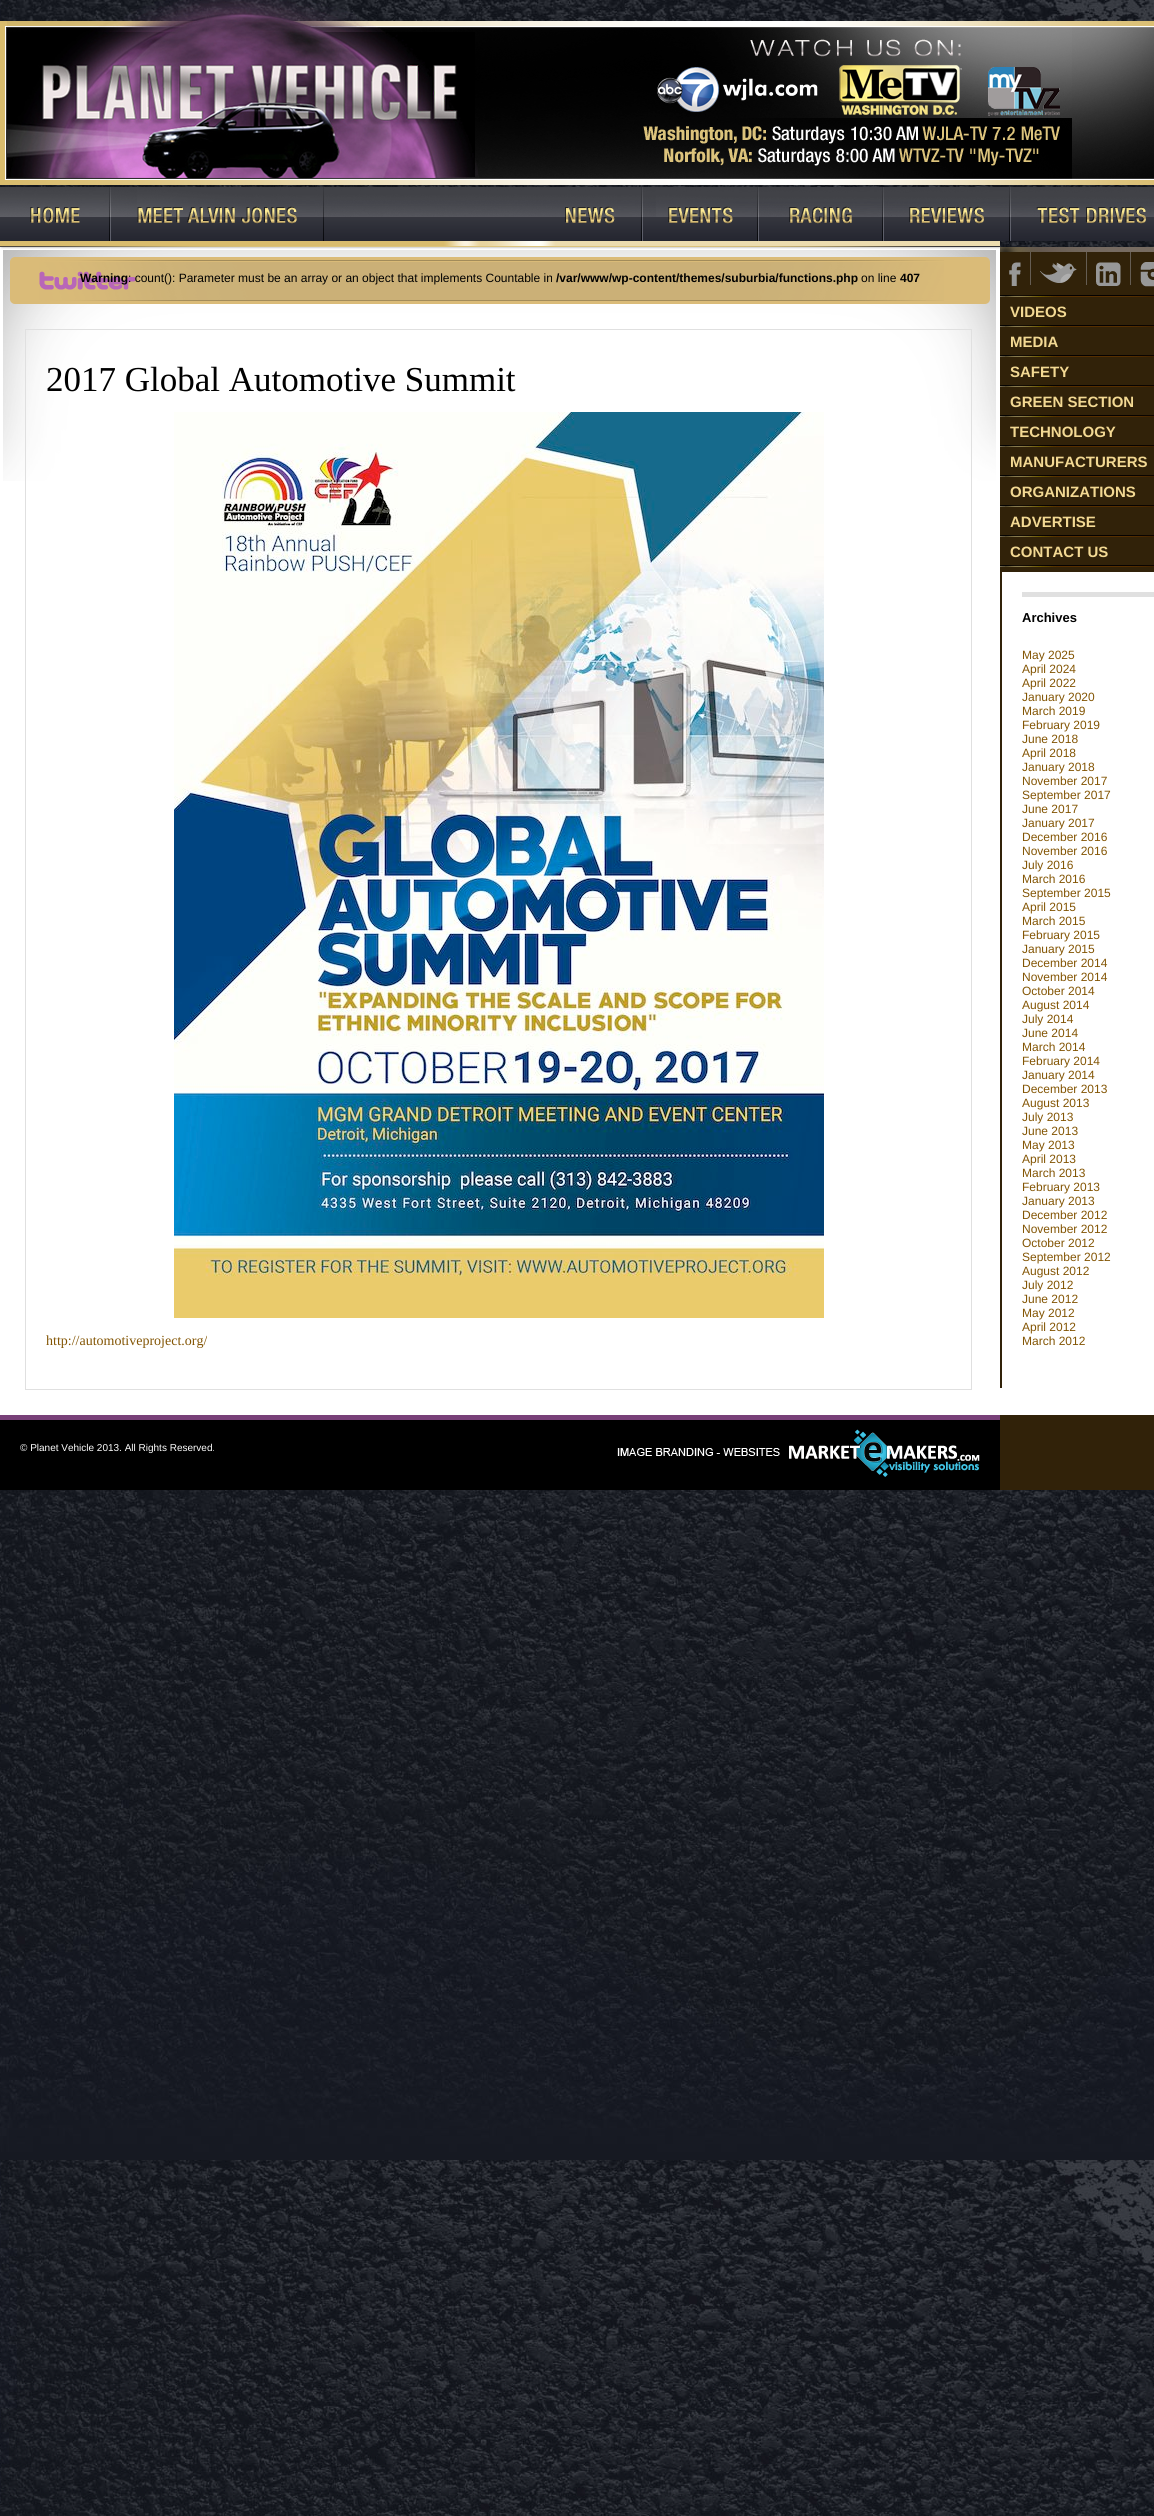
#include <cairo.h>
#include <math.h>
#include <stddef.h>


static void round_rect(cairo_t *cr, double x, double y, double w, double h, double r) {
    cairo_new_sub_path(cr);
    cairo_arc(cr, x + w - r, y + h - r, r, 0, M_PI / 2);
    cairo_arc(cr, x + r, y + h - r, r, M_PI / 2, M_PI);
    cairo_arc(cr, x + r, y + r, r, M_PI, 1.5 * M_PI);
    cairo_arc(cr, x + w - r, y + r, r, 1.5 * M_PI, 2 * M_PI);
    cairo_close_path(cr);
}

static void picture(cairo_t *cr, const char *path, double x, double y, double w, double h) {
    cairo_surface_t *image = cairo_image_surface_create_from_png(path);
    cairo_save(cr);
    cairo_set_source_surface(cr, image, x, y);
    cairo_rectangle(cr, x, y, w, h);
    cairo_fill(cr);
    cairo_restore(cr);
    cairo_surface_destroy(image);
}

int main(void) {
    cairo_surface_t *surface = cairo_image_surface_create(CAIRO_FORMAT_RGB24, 1154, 2516);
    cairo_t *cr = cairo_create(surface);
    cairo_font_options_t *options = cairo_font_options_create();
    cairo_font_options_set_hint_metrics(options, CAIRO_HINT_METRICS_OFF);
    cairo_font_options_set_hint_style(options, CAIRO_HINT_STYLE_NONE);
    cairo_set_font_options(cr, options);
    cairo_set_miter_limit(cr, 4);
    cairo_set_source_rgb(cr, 1, 1, 1);
    cairo_paint(cr);
    picture(cr, "img1.png", 0, 0, 1154, 2516);
    picture(cr, "img2.png", 0, 0, 1154, 185);
    picture(cr, "img3.png", 0, 187, 1000, 60);
    picture(cr, "img4.png", 30, 187, 81, 54);
    picture(cr, "img5.png", 137, 187, 187, 54);
    picture(cr, "img6.png", 565, 187, 78, 54);
    picture(cr, "img7.png", 656, 187, 103, 54);
    picture(cr, "img8.png", 789, 187, 95, 54);
    picture(cr, "img9.png", 909, 187, 102, 54);
    picture(cr, "img10.png", 1011, 187, 143, 54);
    cairo_set_source_rgb(cr, 1, 1, 1);
    cairo_rectangle(cr, 0, 247, 1154, 1168);
    cairo_fill(cr);
    picture(cr, "img11.png", 1000, 247, 154, 5);
    picture(cr, "img12.png", 0, 247, 1000, 234);
    cairo_set_source_rgb(cr, 0.855, 0.733, 0.471);
    round_rect(cr, 10, 257, 980, 47, 5);
    cairo_fill(cr);
    picture(cr, "img13.png", 39, 260, 905, 41);
    cairo_select_font_face(cr, "Liberation Sans", CAIRO_FONT_SLANT_NORMAL, CAIRO_FONT_WEIGHT_BOLD);
    cairo_set_font_size(cr, 12);
    cairo_set_source_rgb(cr, 0, 0, 0);
    cairo_move_to(cr, 80, 282);
    cairo_show_text(cr, "Warning");
    cairo_select_font_face(cr, "Liberation Sans", CAIRO_FONT_SLANT_NORMAL, CAIRO_FONT_WEIGHT_NORMAL);
    cairo_move_to(cr, 128, 282);
    cairo_show_text(cr, ": count(): Parameter must be an array or an object that implements Countable in");
    cairo_select_font_face(cr, "Liberation Sans", CAIRO_FONT_SLANT_NORMAL, CAIRO_FONT_WEIGHT_BOLD);
    cairo_move_to(cr, 556, 282);
    cairo_show_text(cr, "/var/www/wp-content/themes/suburbia/functions.php");
    cairo_select_font_face(cr, "Liberation Sans", CAIRO_FONT_SLANT_NORMAL, CAIRO_FONT_WEIGHT_NORMAL);
    cairo_move_to(cr, 861, 282);
    cairo_show_text(cr, "on line");
    cairo_select_font_face(cr, "Liberation Sans", CAIRO_FONT_SLANT_NORMAL, CAIRO_FONT_WEIGHT_BOLD);
    cairo_move_to(cr, 900, 282);
    cairo_show_text(cr, "407");
    cairo_rectangle(cr, 25.5, 329.5, 946, 1060);
    cairo_set_source_rgb(cr, 0.878, 0.878, 0.878);
    cairo_set_line_width(cr, 1);
    cairo_stroke(cr);
    cairo_select_font_face(cr, "Liberation Serif", CAIRO_FONT_SLANT_NORMAL, CAIRO_FONT_WEIGHT_NORMAL);
    cairo_set_font_size(cr, 35);
    cairo_set_source_rgb(cr, 0, 0, 0);
    cairo_move_to(cr, 46, 391);
    cairo_show_text(cr, "2017 Global Automotive Summit");
    picture(cr, "img14.png", 174, 412, 650, 906);
    cairo_set_font_size(cr, 14);
    cairo_set_source_rgb(cr, 0.514, 0.333, 0.016);
    cairo_move_to(cr, 46, 1345);
    cairo_show_text(cr, "http://automotiveproject.org/");
    cairo_set_source_rgb(cr, 0.192, 0.133, 0.039);
    cairo_rectangle(cr, 1000, 252, 154, 1136);
    cairo_fill(cr);
    picture(cr, "img15.png", 1009, 262, 12, 24);
    cairo_set_source_rgb(cr, 0.396, 0.365, 0.325);
    cairo_rectangle(cr, 1030, 252, 1, 33);
    cairo_fill(cr);
    picture(cr, "img16.png", 1040, 262, 37, 21);
    cairo_rectangle(cr, 1086, 252, 1, 33);
    cairo_fill(cr);
    picture(cr, "img17.png", 1096, 262, 25, 24);
    cairo_rectangle(cr, 1130, 252, 1, 33);
    cairo_fill(cr);
    picture(cr, "img18.png", 1140, 262, 14, 25);
    picture(cr, "img19.png", 1000, 295, 154, 2);
    picture(cr, "img19.png", 1000, 325, 154, 2);
    cairo_select_font_face(cr, "Liberation Sans", CAIRO_FONT_SLANT_NORMAL, CAIRO_FONT_WEIGHT_BOLD);
    cairo_set_font_size(cr, 15);
    cairo_set_source_rgb(cr, 0.953, 0.851, 0.576);
    cairo_move_to(cr, 1010, 317);
    cairo_show_text(cr, "VIDEOS");
    picture(cr, "img19.png", 1000, 355, 154, 2);
    cairo_move_to(cr, 1010, 347);
    cairo_show_text(cr, "MEDIA");
    picture(cr, "img19.png", 1000, 385, 154, 2);
    cairo_move_to(cr, 1010, 377);
    cairo_show_text(cr, "SAFETY");
    picture(cr, "img19.png", 1000, 415, 154, 2);
    cairo_move_to(cr, 1010, 407);
    cairo_show_text(cr, "GREEN SECTION");
    picture(cr, "img19.png", 1000, 445, 154, 2);
    cairo_move_to(cr, 1010, 437);
    cairo_show_text(cr, "TECHNOLOGY");
    picture(cr, "img19.png", 1000, 475, 154, 2);
    cairo_move_to(cr, 1010, 467);
    cairo_show_text(cr, "MANUFACTURERS");
    picture(cr, "img19.png", 1000, 505, 154, 2);
    cairo_move_to(cr, 1010, 497);
    cairo_show_text(cr, "ORGANIZATIONS");
    picture(cr, "img19.png", 1000, 535, 154, 2);
    cairo_move_to(cr, 1010, 527);
    cairo_show_text(cr, "ADVERTISE");
    picture(cr, "img19.png", 1000, 565, 154, 2);
    cairo_move_to(cr, 1010, 557);
    cairo_show_text(cr, "CONTACT US");
    cairo_set_source_rgb(cr, 1, 1, 1);
    cairo_rectangle(cr, 1002, 572, 152, 816);
    cairo_fill(cr);
    cairo_set_source_rgb(cr, 0.878, 0.878, 0.878);
    cairo_rectangle(cr, 1022, 592, 132, 5);
    cairo_fill(cr);
    cairo_set_font_size(cr, 13);
    cairo_set_source_rgb(cr, 0, 0, 0);
    cairo_move_to(cr, 1022, 622);
    cairo_show_text(cr, "Archives");
    cairo_select_font_face(cr, "Liberation Sans", CAIRO_FONT_SLANT_NORMAL, CAIRO_FONT_WEIGHT_NORMAL);
    cairo_set_font_size(cr, 12);
    cairo_set_source_rgb(cr, 0.514, 0.333, 0.016);
    cairo_move_to(cr, 1022, 659);
    cairo_show_text(cr, "May 2025");
    cairo_move_to(cr, 1022, 673);
    cairo_show_text(cr, "April 2024");
    cairo_move_to(cr, 1022, 687);
    cairo_show_text(cr, "April 2022");
    cairo_move_to(cr, 1022, 701);
    cairo_show_text(cr, "January 2020");
    cairo_move_to(cr, 1022, 715);
    cairo_show_text(cr, "March 2019");
    cairo_move_to(cr, 1022, 729);
    cairo_show_text(cr, "February 2019");
    cairo_move_to(cr, 1022, 743);
    cairo_show_text(cr, "June 2018");
    cairo_move_to(cr, 1022, 757);
    cairo_show_text(cr, "April 2018");
    cairo_move_to(cr, 1022, 771);
    cairo_show_text(cr, "January 2018");
    cairo_move_to(cr, 1022, 785);
    cairo_show_text(cr, "November 2017");
    cairo_move_to(cr, 1022, 799);
    cairo_show_text(cr, "September 2017");
    cairo_move_to(cr, 1022, 813);
    cairo_show_text(cr, "June 2017");
    cairo_move_to(cr, 1022, 827);
    cairo_show_text(cr, "January 2017");
    cairo_move_to(cr, 1022, 841);
    cairo_show_text(cr, "December 2016");
    cairo_move_to(cr, 1022, 855);
    cairo_show_text(cr, "November 2016");
    cairo_move_to(cr, 1022, 869);
    cairo_show_text(cr, "July 2016");
    cairo_move_to(cr, 1022, 883);
    cairo_show_text(cr, "March 2016");
    cairo_move_to(cr, 1022, 897);
    cairo_show_text(cr, "September 2015");
    cairo_move_to(cr, 1022, 911);
    cairo_show_text(cr, "April 2015");
    cairo_move_to(cr, 1022, 925);
    cairo_show_text(cr, "March 2015");
    cairo_move_to(cr, 1022, 939);
    cairo_show_text(cr, "February 2015");
    cairo_move_to(cr, 1022, 953);
    cairo_show_text(cr, "January 2015");
    cairo_move_to(cr, 1022, 967);
    cairo_show_text(cr, "December 2014");
    cairo_move_to(cr, 1022, 981);
    cairo_show_text(cr, "November 2014");
    cairo_move_to(cr, 1022, 995);
    cairo_show_text(cr, "October 2014");
    cairo_move_to(cr, 1022, 1009);
    cairo_show_text(cr, "August 2014");
    cairo_move_to(cr, 1022, 1023);
    cairo_show_text(cr, "July 2014");
    cairo_move_to(cr, 1022, 1037);
    cairo_show_text(cr, "June 2014");
    cairo_move_to(cr, 1022, 1051);
    cairo_show_text(cr, "March 2014");
    cairo_move_to(cr, 1022, 1065);
    cairo_show_text(cr, "February 2014");
    cairo_move_to(cr, 1022, 1079);
    cairo_show_text(cr, "January 2014");
    cairo_move_to(cr, 1022, 1093);
    cairo_show_text(cr, "December 2013");
    cairo_move_to(cr, 1022, 1107);
    cairo_show_text(cr, "August 2013");
    cairo_move_to(cr, 1022, 1121);
    cairo_show_text(cr, "July 2013");
    cairo_move_to(cr, 1022, 1135);
    cairo_show_text(cr, "June 2013");
    cairo_move_to(cr, 1022, 1149);
    cairo_show_text(cr, "May 2013");
    cairo_move_to(cr, 1022, 1163);
    cairo_show_text(cr, "April 2013");
    cairo_move_to(cr, 1022, 1177);
    cairo_show_text(cr, "March 2013");
    cairo_move_to(cr, 1022, 1191);
    cairo_show_text(cr, "February 2013");
    cairo_move_to(cr, 1022, 1205);
    cairo_show_text(cr, "January 2013");
    cairo_move_to(cr, 1022, 1219);
    cairo_show_text(cr, "December 2012");
    cairo_move_to(cr, 1022, 1233);
    cairo_show_text(cr, "November 2012");
    cairo_move_to(cr, 1022, 1247);
    cairo_show_text(cr, "October 2012");
    cairo_move_to(cr, 1022, 1261);
    cairo_show_text(cr, "September 2012");
    cairo_move_to(cr, 1022, 1275);
    cairo_show_text(cr, "August 2012");
    cairo_move_to(cr, 1022, 1289);
    cairo_show_text(cr, "July 2012");
    cairo_move_to(cr, 1022, 1303);
    cairo_show_text(cr, "June 2012");
    cairo_move_to(cr, 1022, 1317);
    cairo_show_text(cr, "May 2012");
    cairo_move_to(cr, 1022, 1331);
    cairo_show_text(cr, "April 2012");
    cairo_move_to(cr, 1022, 1345);
    cairo_show_text(cr, "March 2012");
    cairo_set_source_rgb(cr, 0.192, 0.133, 0.039);
    cairo_rectangle(cr, 1000, 1415, 154, 75);
    cairo_fill(cr);
    cairo_set_source_rgb(cr, 0, 0, 0);
    cairo_rectangle(cr, 0, 1420, 1000, 70);
    cairo_fill(cr);
    cairo_set_source_rgb(cr, 0.471, 0.251, 0.471);
    cairo_rectangle(cr, 0, 1415, 1000, 5);
    cairo_fill(cr);
    cairo_set_font_size(cr, 10);
    cairo_set_source_rgb(cr, 1, 1, 1);
    cairo_move_to(cr, 20, 1451);
    cairo_show_text(cr, "© Planet Vehicle 2013. All Rights Reserved.");
    picture(cr, "img20.png", 617, 1429, 363, 48);
    cairo_surface_write_to_png(surface, "page.png");
    cairo_font_options_destroy(options);
    cairo_destroy(cr);
    cairo_surface_destroy(surface);
    return 0;
}
